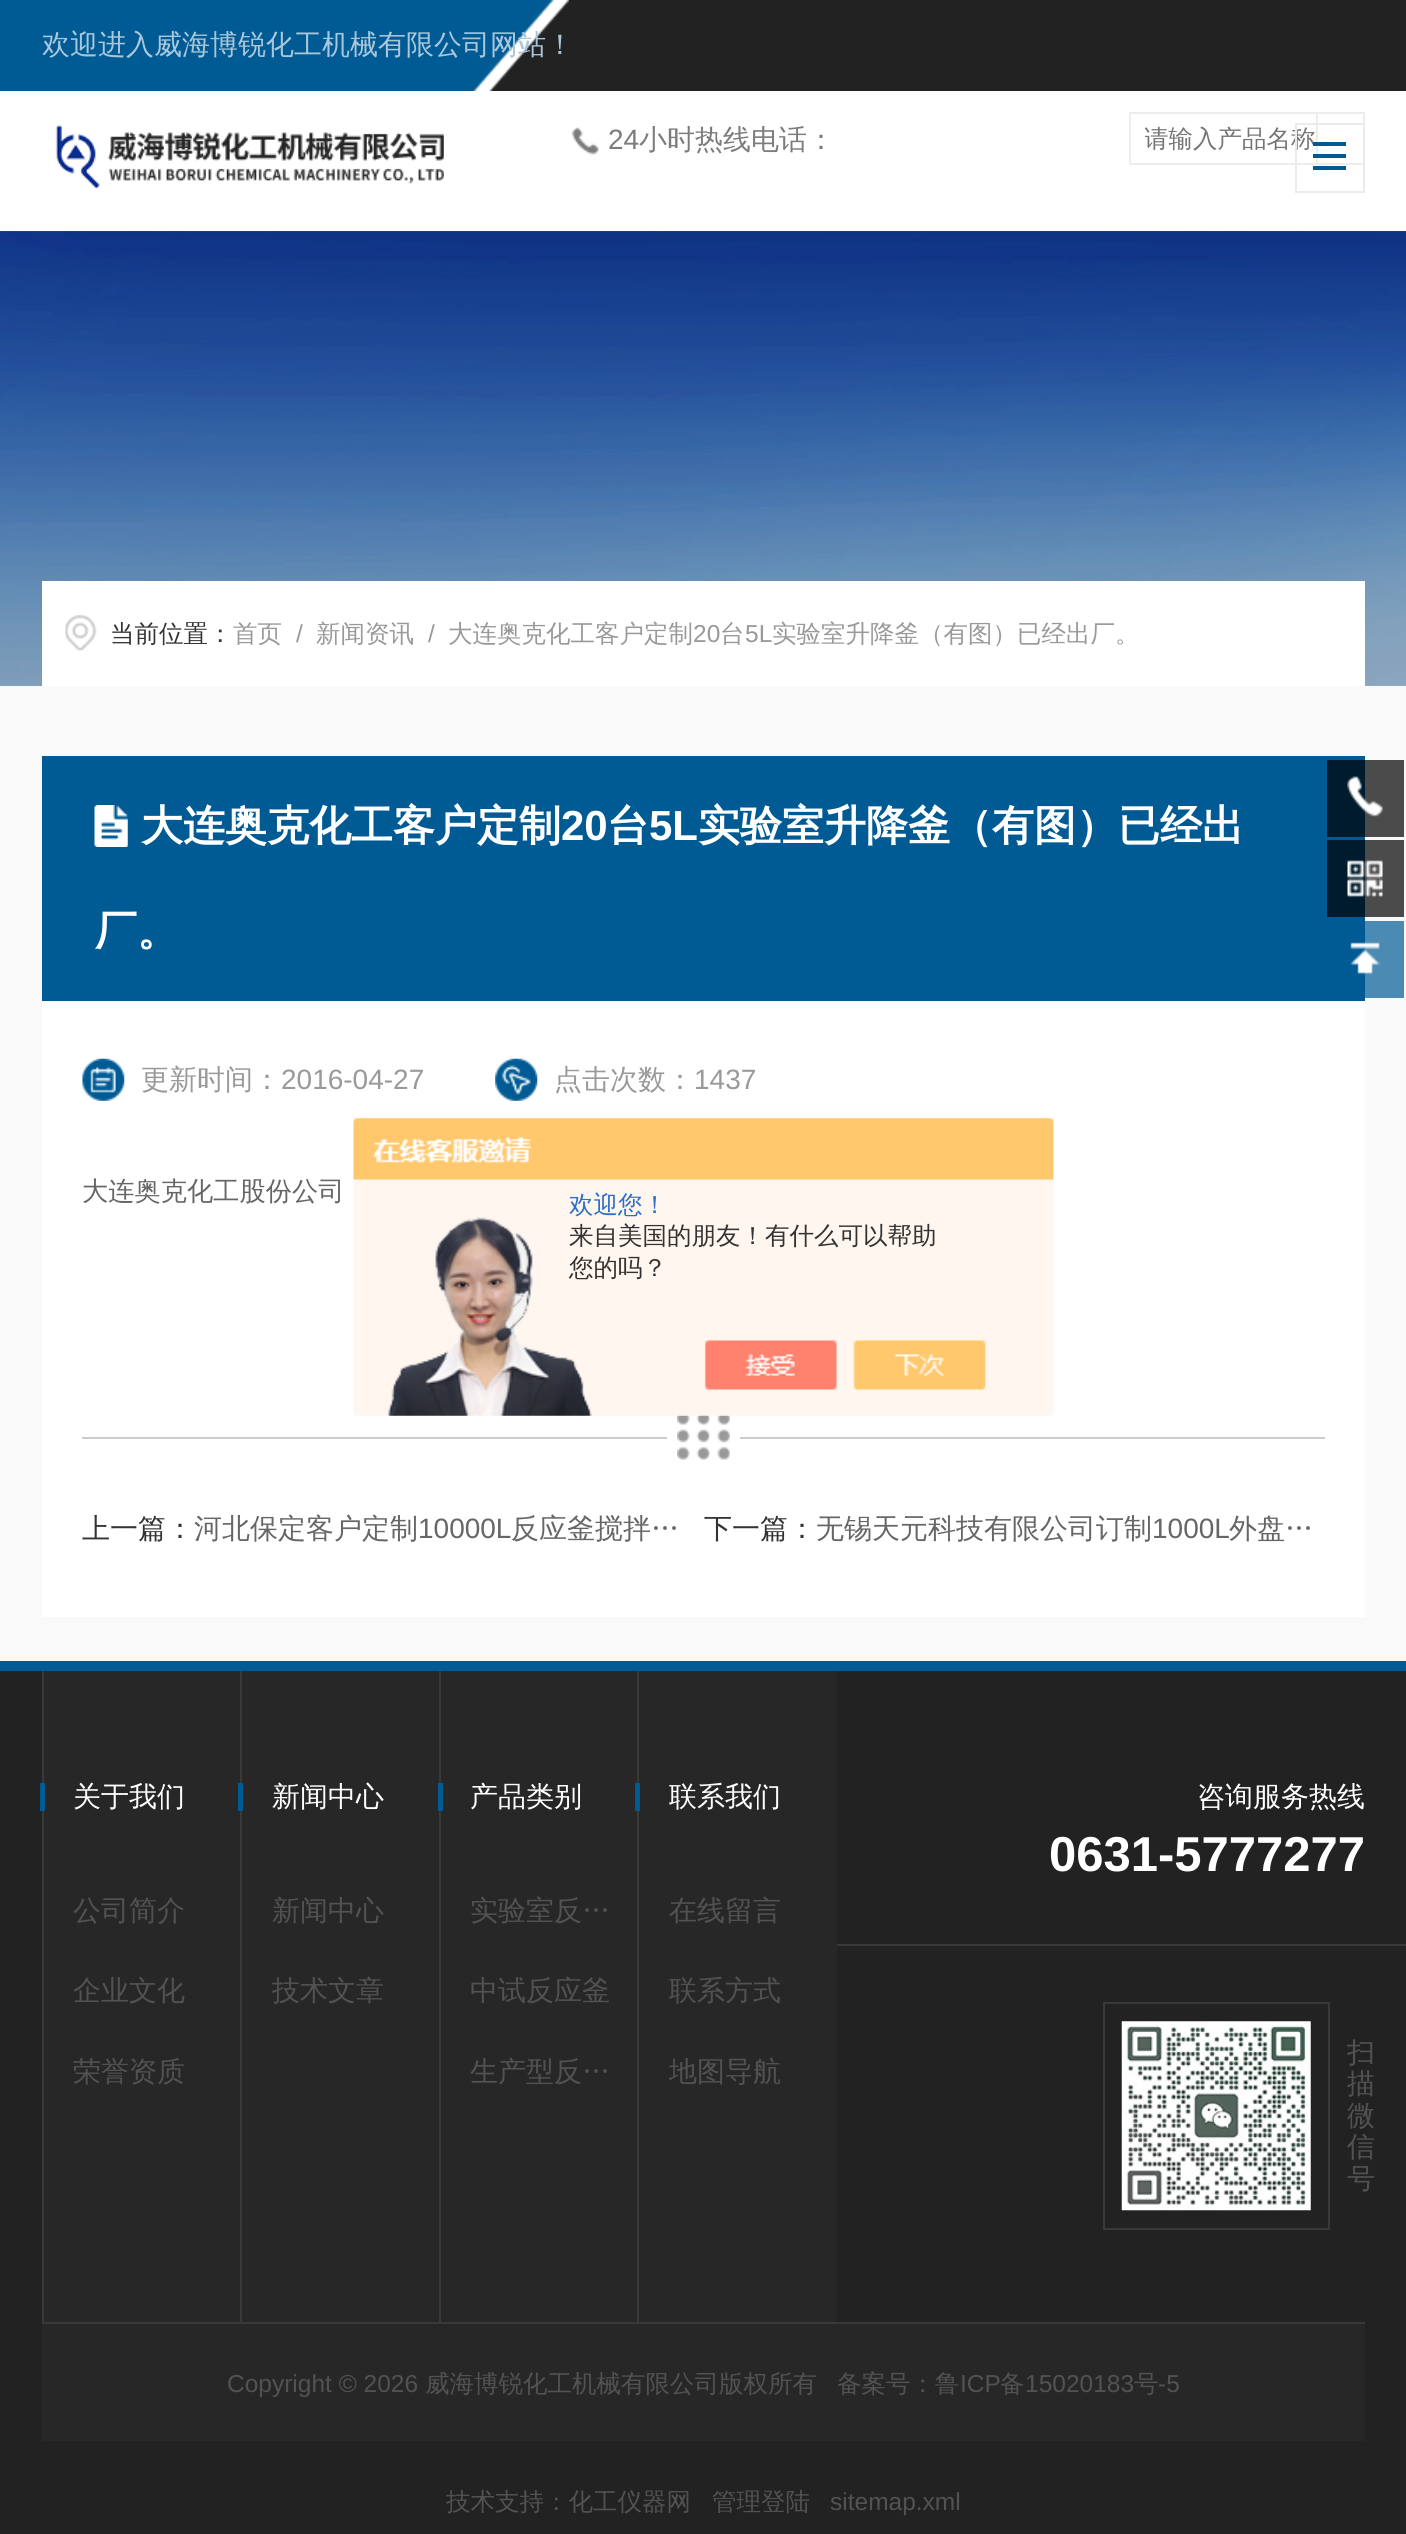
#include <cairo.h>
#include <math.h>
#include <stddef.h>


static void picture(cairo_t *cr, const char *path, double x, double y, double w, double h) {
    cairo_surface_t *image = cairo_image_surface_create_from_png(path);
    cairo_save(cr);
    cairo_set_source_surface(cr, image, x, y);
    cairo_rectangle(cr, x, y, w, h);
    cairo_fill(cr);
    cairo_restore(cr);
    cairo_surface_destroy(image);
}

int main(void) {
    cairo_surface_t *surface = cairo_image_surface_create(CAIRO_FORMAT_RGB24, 1406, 2534);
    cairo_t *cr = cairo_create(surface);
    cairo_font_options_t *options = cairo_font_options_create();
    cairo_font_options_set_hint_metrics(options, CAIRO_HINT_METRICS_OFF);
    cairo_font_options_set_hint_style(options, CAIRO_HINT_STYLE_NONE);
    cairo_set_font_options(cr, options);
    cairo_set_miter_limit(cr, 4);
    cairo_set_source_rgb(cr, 0.976, 0.976, 0.976);
    cairo_paint(cr);
    cairo_set_source_rgb(cr, 0.294, 0.294, 0.294);
    cairo_rectangle(cr, 1365, 840, 39, 77);
    cairo_fill(cr);
    cairo_set_source_rgb(cr, 0.294, 0.541, 0.702);
    cairo_rectangle(cr, 1365, 921, 39, 77);
    cairo_fill(cr);
    cairo_set_source_rgb(cr, 0.294, 0.294, 0.294);
    cairo_rectangle(cr, 1365, 760, 39, 77);
    cairo_fill(cr);
    cairo_set_source_rgb(cr, 0.133, 0.133, 0.133);
    cairo_rectangle(cr, 489, 0, 917, 91);
    cairo_fill(cr);
    picture(cr, "img1.png", 0, 0, 569, 91);
    cairo_select_font_face(cr, "WenQuanYi Zen Hei Medium", CAIRO_FONT_SLANT_NORMAL, CAIRO_FONT_WEIGHT_NORMAL);
    cairo_set_font_size(cr, 28);
    cairo_set_source_rgb(cr, 0.663, 0.78, 0.855);
    cairo_move_to(cr, 42, 54);
    cairo_show_text(cr, "欢迎进入威海博锐化工机械有限公司网站！");
    cairo_set_source_rgb(cr, 1, 1, 1);
    cairo_rectangle(cr, 0, 91, 1406, 140);
    cairo_fill(cr);
    picture(cr, "img2.png", 571, 127, 28, 28);
    cairo_select_font_face(cr, "Liberation Sans", CAIRO_FONT_SLANT_NORMAL, CAIRO_FONT_WEIGHT_NORMAL);
    cairo_set_source_rgb(cr, 0.486, 0.486, 0.486);
    cairo_move_to(cr, 608, 149);
    cairo_show_text(cr, "24");
    cairo_select_font_face(cr, "WenQuanYi Zen Hei Medium", CAIRO_FONT_SLANT_NORMAL, CAIRO_FONT_WEIGHT_NORMAL);
    cairo_move_to(cr, 639, 149);
    cairo_show_text(cr, "小时热线电话：");
    cairo_rectangle(cr, 1130, 113, 187, 51);
    cairo_set_source_rgb(cr, 0.929, 0.929, 0.929);
    cairo_stroke(cr);
    cairo_save(cr);
    cairo_rectangle(cr, 1145, 124, 171, 32);
    cairo_clip(cr);
    cairo_set_font_size(cr, 24.5);
    cairo_set_source_rgb(cr, 0.459, 0.459, 0.459);
    cairo_move_to(cr, 1144, 147);
    cairo_show_text(cr, "请输入产品名称");
    cairo_restore(cr);
    cairo_rectangle(cr, 1318, 112, 47, 2);
    cairo_fill(cr);
    cairo_rectangle(cr, 1363, 112, 2, 11);
    cairo_fill(cr);
    cairo_rectangle(cr, 1318, 163, 47, 2);
    cairo_fill(cr);
    picture(cr, "img3.png", 55, 125, 389, 64);
    cairo_rectangle(cr, 1296, 124, 68, 68);
    cairo_set_source_rgb(cr, 0.918, 0.918, 0.918);
    cairo_stroke(cr);
    cairo_set_source_rgb(cr, 0, 0.357, 0.584);
    cairo_rectangle(cr, 1313, 142, 33, 4);
    cairo_fill(cr);
    cairo_rectangle(cr, 1313, 154, 33, 4);
    cairo_fill(cr);
    cairo_rectangle(cr, 1313, 166, 33, 4);
    cairo_fill(cr);
    picture(cr, "img4.png", 0, 231, 1406, 455);
    cairo_set_source_rgb(cr, 1, 1, 1);
    cairo_rectangle(cr, 42, 581, 1323, 105);
    cairo_fill(cr);
    picture(cr, "img5.png", 65, 615, 32, 36);
    cairo_set_font_size(cr, 24.5);
    cairo_set_source_rgb(cr, 0.2, 0.2, 0.2);
    cairo_move_to(cr, 110, 642);
    cairo_show_text(cr, "当前位置：");
    cairo_set_source_rgb(cr, 0.6, 0.6, 0.6);
    cairo_move_to(cr, 233, 642);
    cairo_show_text(cr, "首页");
    cairo_select_font_face(cr, "Liberation Sans", CAIRO_FONT_SLANT_NORMAL, CAIRO_FONT_WEIGHT_NORMAL);
    cairo_move_to(cr, 296, 642);
    cairo_show_text(cr, "/");
    cairo_select_font_face(cr, "WenQuanYi Zen Hei Medium", CAIRO_FONT_SLANT_NORMAL, CAIRO_FONT_WEIGHT_NORMAL);
    cairo_move_to(cr, 316, 642);
    cairo_show_text(cr, "新闻资讯");
    cairo_select_font_face(cr, "Liberation Sans", CAIRO_FONT_SLANT_NORMAL, CAIRO_FONT_WEIGHT_NORMAL);
    cairo_move_to(cr, 428, 642);
    cairo_show_text(cr, "/");
    cairo_select_font_face(cr, "WenQuanYi Zen Hei Medium", CAIRO_FONT_SLANT_NORMAL, CAIRO_FONT_WEIGHT_NORMAL);
    cairo_move_to(cr, 448, 642);
    cairo_show_text(cr, "大连奥克化工客户定制");
    cairo_select_font_face(cr, "Liberation Sans", CAIRO_FONT_SLANT_NORMAL, CAIRO_FONT_WEIGHT_NORMAL);
    cairo_move_to(cr, 693, 642);
    cairo_show_text(cr, "20");
    cairo_select_font_face(cr, "WenQuanYi Zen Hei Medium", CAIRO_FONT_SLANT_NORMAL, CAIRO_FONT_WEIGHT_NORMAL);
    cairo_move_to(cr, 720, 642);
    cairo_show_text(cr, "台");
    cairo_select_font_face(cr, "Liberation Sans", CAIRO_FONT_SLANT_NORMAL, CAIRO_FONT_WEIGHT_NORMAL);
    cairo_move_to(cr, 745, 642);
    cairo_show_text(cr, "5L");
    cairo_select_font_face(cr, "WenQuanYi Zen Hei Medium", CAIRO_FONT_SLANT_NORMAL, CAIRO_FONT_WEIGHT_NORMAL);
    cairo_move_to(cr, 772, 642);
    cairo_show_text(cr, "实验室升降釜（有图）已经出厂。");
    cairo_set_source_rgb(cr, 1, 1, 1);
    cairo_rectangle(cr, 42, 1001, 1323, 616);
    cairo_fill(cr);
    cairo_set_source_rgb(cr, 0, 0.357, 0.584);
    cairo_rectangle(cr, 42, 756, 1323, 245);
    cairo_fill(cr);
    cairo_set_source_rgb(cr, 0, 0.106, 0.176);
    cairo_rectangle(cr, 1327, 840, 38, 77);
    cairo_fill(cr);
    cairo_rectangle(cr, 1327, 760, 38, 77);
    cairo_fill(cr);
    picture(cr, "img6.png", 94, 805, 34, 42);
    cairo_select_font_face(cr, "WenQuanYi Zen Hei", CAIRO_FONT_SLANT_NORMAL, CAIRO_FONT_WEIGHT_BOLD);
    cairo_set_font_size(cr, 42);
    cairo_set_source_rgb(cr, 1, 1, 1);
    cairo_move_to(cr, 141, 840);
    cairo_show_text(cr, "大连奥克化工客户定制");
    cairo_select_font_face(cr, "Liberation Sans", CAIRO_FONT_SLANT_NORMAL, CAIRO_FONT_WEIGHT_BOLD);
    cairo_move_to(cr, 561, 840);
    cairo_show_text(cr, "20");
    cairo_select_font_face(cr, "WenQuanYi Zen Hei", CAIRO_FONT_SLANT_NORMAL, CAIRO_FONT_WEIGHT_BOLD);
    cairo_move_to(cr, 607, 840);
    cairo_show_text(cr, "台");
    cairo_select_font_face(cr, "Liberation Sans", CAIRO_FONT_SLANT_NORMAL, CAIRO_FONT_WEIGHT_BOLD);
    cairo_move_to(cr, 649, 840);
    cairo_show_text(cr, "5L");
    cairo_select_font_face(cr, "WenQuanYi Zen Hei", CAIRO_FONT_SLANT_NORMAL, CAIRO_FONT_WEIGHT_BOLD);
    cairo_move_to(cr, 698, 840);
    cairo_show_text(cr, "实验室升降釜（有图）已经出");
    cairo_move_to(cr, 95, 945);
    cairo_show_text(cr, "厂。");
    picture(cr, "img7.png", 82, 1058, 43, 43);
    cairo_select_font_face(cr, "WenQuanYi Zen Hei Medium", CAIRO_FONT_SLANT_NORMAL, CAIRO_FONT_WEIGHT_NORMAL);
    cairo_set_font_size(cr, 28);
    cairo_set_source_rgb(cr, 0.6, 0.6, 0.6);
    cairo_move_to(cr, 141, 1089);
    cairo_show_text(cr, "更新时间：");
    cairo_select_font_face(cr, "Liberation Sans", CAIRO_FONT_SLANT_NORMAL, CAIRO_FONT_WEIGHT_NORMAL);
    cairo_move_to(cr, 281, 1089);
    cairo_show_text(cr, "2016-04-27");
    picture(cr, "img8.png", 495, 1058, 43, 43);
    cairo_select_font_face(cr, "WenQuanYi Zen Hei Medium", CAIRO_FONT_SLANT_NORMAL, CAIRO_FONT_WEIGHT_NORMAL);
    cairo_move_to(cr, 554, 1089);
    cairo_show_text(cr, "点击次数：");
    cairo_select_font_face(cr, "Liberation Sans", CAIRO_FONT_SLANT_NORMAL, CAIRO_FONT_WEIGHT_NORMAL);
    cairo_move_to(cr, 694, 1089);
    cairo_show_text(cr, "1437");
    cairo_select_font_face(cr, "WenQuanYi Zen Hei Medium", CAIRO_FONT_SLANT_NORMAL, CAIRO_FONT_WEIGHT_NORMAL);
    cairo_set_font_size(cr, 26.25);
    cairo_set_source_rgb(cr, 0.4, 0.4, 0.4);
    cairo_move_to(cr, 82, 1200);
    cairo_show_text(cr, "大连奥克化工股份公司");
    cairo_set_source_rgb(cr, 0.8, 0.8, 0.8);
    cairo_rectangle(cr, 82, 1437, 585, 2);
    cairo_fill(cr);
    picture(cr, "img9.png", 677, 1415, 53, 45);
    cairo_rectangle(cr, 740, 1437, 585, 2);
    cairo_fill(cr);
    cairo_set_font_size(cr, 28);
    cairo_set_source_rgb(cr, 0.2, 0.2, 0.2);
    cairo_move_to(cr, 82, 1538);
    cairo_show_text(cr, "上一篇：");
    cairo_set_source_rgb(cr, 0.4, 0.4, 0.4);
    cairo_move_to(cr, 194, 1538);
    cairo_show_text(cr, "河北保定客户定制");
    cairo_select_font_face(cr, "Liberation Sans", CAIRO_FONT_SLANT_NORMAL, CAIRO_FONT_WEIGHT_NORMAL);
    cairo_move_to(cr, 418, 1538);
    cairo_show_text(cr, "10000L");
    cairo_select_font_face(cr, "WenQuanYi Zen Hei Medium", CAIRO_FONT_SLANT_NORMAL, CAIRO_FONT_WEIGHT_NORMAL);
    cairo_move_to(cr, 511, 1538);
    cairo_show_text(cr, "反应釜搅拌…");
    cairo_set_source_rgb(cr, 0.2, 0.2, 0.2);
    cairo_move_to(cr, 704, 1538);
    cairo_show_text(cr, "下一篇：");
    cairo_set_source_rgb(cr, 0.4, 0.4, 0.4);
    cairo_move_to(cr, 816, 1538);
    cairo_show_text(cr, "无锡天元科技有限公司订制");
    cairo_select_font_face(cr, "Liberation Sans", CAIRO_FONT_SLANT_NORMAL, CAIRO_FONT_WEIGHT_NORMAL);
    cairo_move_to(cr, 1152, 1538);
    cairo_show_text(cr, "1000L");
    cairo_select_font_face(cr, "WenQuanYi Zen Hei Medium", CAIRO_FONT_SLANT_NORMAL, CAIRO_FONT_WEIGHT_NORMAL);
    cairo_move_to(cr, 1229, 1538);
    cairo_show_text(cr, "外盘…");
    picture(cr, "img10.png", 1347, 776, 36, 41);
    picture(cr, "img11.png", 1347, 860, 36, 38);
    picture(cr, "img12.png", 1350, 942, 30, 33);
    picture(cr, "img13.png", 353, 1118, 701, 298);
    cairo_set_font_size(cr, 24.5);
    cairo_set_source_rgb(cr, 0.18, 0.431, 0.776);
    cairo_move_to(cr, 569, 1213);
    cairo_show_text(cr, "欢迎您！");
    cairo_set_source_rgb(cr, 0.2, 0.2, 0.2);
    cairo_move_to(cr, 569, 1244);
    cairo_show_text(cr, "来自美国的朋友！有什么可以帮助");
    cairo_move_to(cr, 569, 1276);
    cairo_show_text(cr, "您的吗？");
    cairo_set_source_rgb(cr, 0.133, 0.133, 0.133);
    cairo_rectangle(cr, 0, 1671, 1406, 863);
    cairo_fill(cr);
    cairo_set_source_rgb(cr, 0, 0.357, 0.584);
    cairo_rectangle(cr, 0, 1661, 1406, 10);
    cairo_fill(cr);
    cairo_set_source_rgb(cr, 0.153, 0.153, 0.153);
    cairo_rectangle(cr, 44, 1671, 793, 651);
    cairo_fill(cr);
    cairo_set_source_rgb(cr, 0.224, 0.224, 0.224);
    cairo_rectangle(cr, 42, 1671, 2, 651);
    cairo_fill(cr);
    cairo_set_source_rgb(cr, 0, 0.357, 0.584);
    cairo_rectangle(cr, 40, 1783, 5, 28);
    cairo_fill(cr);
    cairo_set_font_size(cr, 28);
    cairo_set_source_rgb(cr, 1, 1, 1);
    cairo_move_to(cr, 73, 1806);
    cairo_show_text(cr, "关于我们");
    cairo_set_source_rgb(cr, 0.322, 0.322, 0.322);
    cairo_move_to(cr, 73, 1920);
    cairo_show_text(cr, "公司简介");
    cairo_move_to(cr, 73, 2000);
    cairo_show_text(cr, "企业文化");
    cairo_move_to(cr, 73, 2081);
    cairo_show_text(cr, "荣誉资质");
    cairo_set_source_rgb(cr, 0.224, 0.224, 0.224);
    cairo_rectangle(cr, 240, 1671, 2, 651);
    cairo_fill(cr);
    cairo_set_source_rgb(cr, 0, 0.357, 0.584);
    cairo_rectangle(cr, 238, 1783, 5, 28);
    cairo_fill(cr);
    cairo_set_source_rgb(cr, 1, 1, 1);
    cairo_move_to(cr, 272, 1806);
    cairo_show_text(cr, "新闻中心");
    cairo_set_source_rgb(cr, 0.322, 0.322, 0.322);
    cairo_move_to(cr, 272, 1920);
    cairo_show_text(cr, "新闻中心");
    cairo_move_to(cr, 272, 2000);
    cairo_show_text(cr, "技术文章");
    cairo_set_source_rgb(cr, 0.224, 0.224, 0.224);
    cairo_rectangle(cr, 439, 1671, 2, 651);
    cairo_fill(cr);
    cairo_set_source_rgb(cr, 0, 0.357, 0.584);
    cairo_rectangle(cr, 438, 1783, 5, 28);
    cairo_fill(cr);
    cairo_set_source_rgb(cr, 1, 1, 1);
    cairo_move_to(cr, 470, 1806);
    cairo_show_text(cr, "产品类别");
    cairo_set_source_rgb(cr, 0.322, 0.322, 0.322);
    cairo_move_to(cr, 470, 1920);
    cairo_show_text(cr, "实验室反…");
    cairo_move_to(cr, 470, 2000);
    cairo_show_text(cr, "中试反应釜");
    cairo_move_to(cr, 470, 2081);
    cairo_show_text(cr, "生产型反…");
    cairo_set_source_rgb(cr, 0.224, 0.224, 0.224);
    cairo_rectangle(cr, 637, 1671, 2, 651);
    cairo_fill(cr);
    cairo_set_source_rgb(cr, 0, 0.357, 0.584);
    cairo_rectangle(cr, 635, 1783, 5, 28);
    cairo_fill(cr);
    cairo_set_source_rgb(cr, 1, 1, 1);
    cairo_move_to(cr, 669, 1806);
    cairo_show_text(cr, "联系我们");
    cairo_set_source_rgb(cr, 0.322, 0.322, 0.322);
    cairo_move_to(cr, 669, 1920);
    cairo_show_text(cr, "在线留言");
    cairo_save(cr);
    cairo_rectangle(cr, 669, 1951, 150, 81);
    cairo_clip(cr);
    cairo_move_to(cr, 669, 2000);
    cairo_show_text(cr, "联系方式");
    cairo_restore(cr);
    cairo_move_to(cr, 669, 2081);
    cairo_show_text(cr, "地图导航");
    cairo_set_source_rgb(cr, 0.224, 0.224, 0.224);
    cairo_rectangle(cr, 837, 1944, 569, 2);
    cairo_fill(cr);
    cairo_set_source_rgb(cr, 1, 1, 1);
    cairo_move_to(cr, 1197, 1806);
    cairo_show_text(cr, "咨询服务热线");
    cairo_select_font_face(cr, "Liberation Sans", CAIRO_FONT_SLANT_NORMAL, CAIRO_FONT_WEIGHT_BOLD);
    cairo_set_font_size(cr, 49);
    cairo_move_to(cr, 1049, 1871);
    cairo_show_text(cr, "0631-5777277");
    cairo_rectangle(cr, 1104, 2003, 225, 226);
    cairo_set_source_rgb(cr, 0.224, 0.224, 0.224);
    cairo_stroke(cr);
    picture(cr, "img14.png", 1121, 2021, 190, 190);
    cairo_select_font_face(cr, "WenQuanYi Zen Hei Medium", CAIRO_FONT_SLANT_NORMAL, CAIRO_FONT_WEIGHT_NORMAL);
    cairo_set_font_size(cr, 28);
    cairo_set_source_rgb(cr, 0.322, 0.322, 0.322);
    cairo_move_to(cr, 1347, 2062);
    cairo_show_text(cr, "扫");
    cairo_move_to(cr, 1347, 2093);
    cairo_show_text(cr, "描");
    cairo_move_to(cr, 1347, 2125);
    cairo_show_text(cr, "微");
    cairo_move_to(cr, 1347, 2156);
    cairo_show_text(cr, "信");
    cairo_move_to(cr, 1347, 2188);
    cairo_show_text(cr, "号");
    cairo_set_source_rgb(cr, 0.153, 0.153, 0.153);
    cairo_rectangle(cr, 42, 2324, 1323, 117);
    cairo_fill(cr);
    cairo_set_source_rgb(cr, 0.224, 0.224, 0.224);
    cairo_rectangle(cr, 42, 2322, 1323, 2);
    cairo_fill(cr);
    cairo_select_font_face(cr, "Liberation Sans", CAIRO_FONT_SLANT_NORMAL, CAIRO_FONT_WEIGHT_NORMAL);
    cairo_set_font_size(cr, 24.5);
    cairo_set_source_rgb(cr, 0.322, 0.322, 0.322);
    cairo_move_to(cr, 227, 2392);
    cairo_show_text(cr, "Copyright © 2026");
    cairo_select_font_face(cr, "WenQuanYi Zen Hei Medium", CAIRO_FONT_SLANT_NORMAL, CAIRO_FONT_WEIGHT_NORMAL);
    cairo_move_to(cr, 425, 2392);
    cairo_show_text(cr, "威海博锐化工机械有限公司版权所有");
    cairo_move_to(cr, 837, 2392);
    cairo_show_text(cr, "备案号：鲁");
    cairo_select_font_face(cr, "Liberation Sans", CAIRO_FONT_SLANT_NORMAL, CAIRO_FONT_WEIGHT_NORMAL);
    cairo_move_to(cr, 960, 2392);
    cairo_show_text(cr, "ICP");
    cairo_select_font_face(cr, "WenQuanYi Zen Hei Medium", CAIRO_FONT_SLANT_NORMAL, CAIRO_FONT_WEIGHT_NORMAL);
    cairo_move_to(cr, 1000, 2392);
    cairo_show_text(cr, "备");
    cairo_select_font_face(cr, "Liberation Sans", CAIRO_FONT_SLANT_NORMAL, CAIRO_FONT_WEIGHT_NORMAL);
    cairo_move_to(cr, 1025, 2392);
    cairo_show_text(cr, "15020183");
    cairo_select_font_face(cr, "WenQuanYi Zen Hei Medium", CAIRO_FONT_SLANT_NORMAL, CAIRO_FONT_WEIGHT_NORMAL);
    cairo_move_to(cr, 1134, 2392);
    cairo_show_text(cr, "号");
    cairo_select_font_face(cr, "Liberation Sans", CAIRO_FONT_SLANT_NORMAL, CAIRO_FONT_WEIGHT_NORMAL);
    cairo_move_to(cr, 1158, 2392);
    cairo_show_text(cr, "-5");
    cairo_select_font_face(cr, "WenQuanYi Zen Hei Medium", CAIRO_FONT_SLANT_NORMAL, CAIRO_FONT_WEIGHT_NORMAL);
    cairo_move_to(cr, 446, 2510);
    cairo_show_text(cr, "技术支持：化工仪器网");
    cairo_move_to(cr, 712, 2510);
    cairo_show_text(cr, "管理登陆");
    cairo_select_font_face(cr, "Liberation Sans", CAIRO_FONT_SLANT_NORMAL, CAIRO_FONT_WEIGHT_NORMAL);
    cairo_move_to(cr, 830, 2510);
    cairo_show_text(cr, "sitemap.xml");
    cairo_surface_write_to_png(surface, "page.png");
    cairo_font_options_destroy(options);
    cairo_destroy(cr);
    cairo_surface_destroy(surface);
    return 0;
}
